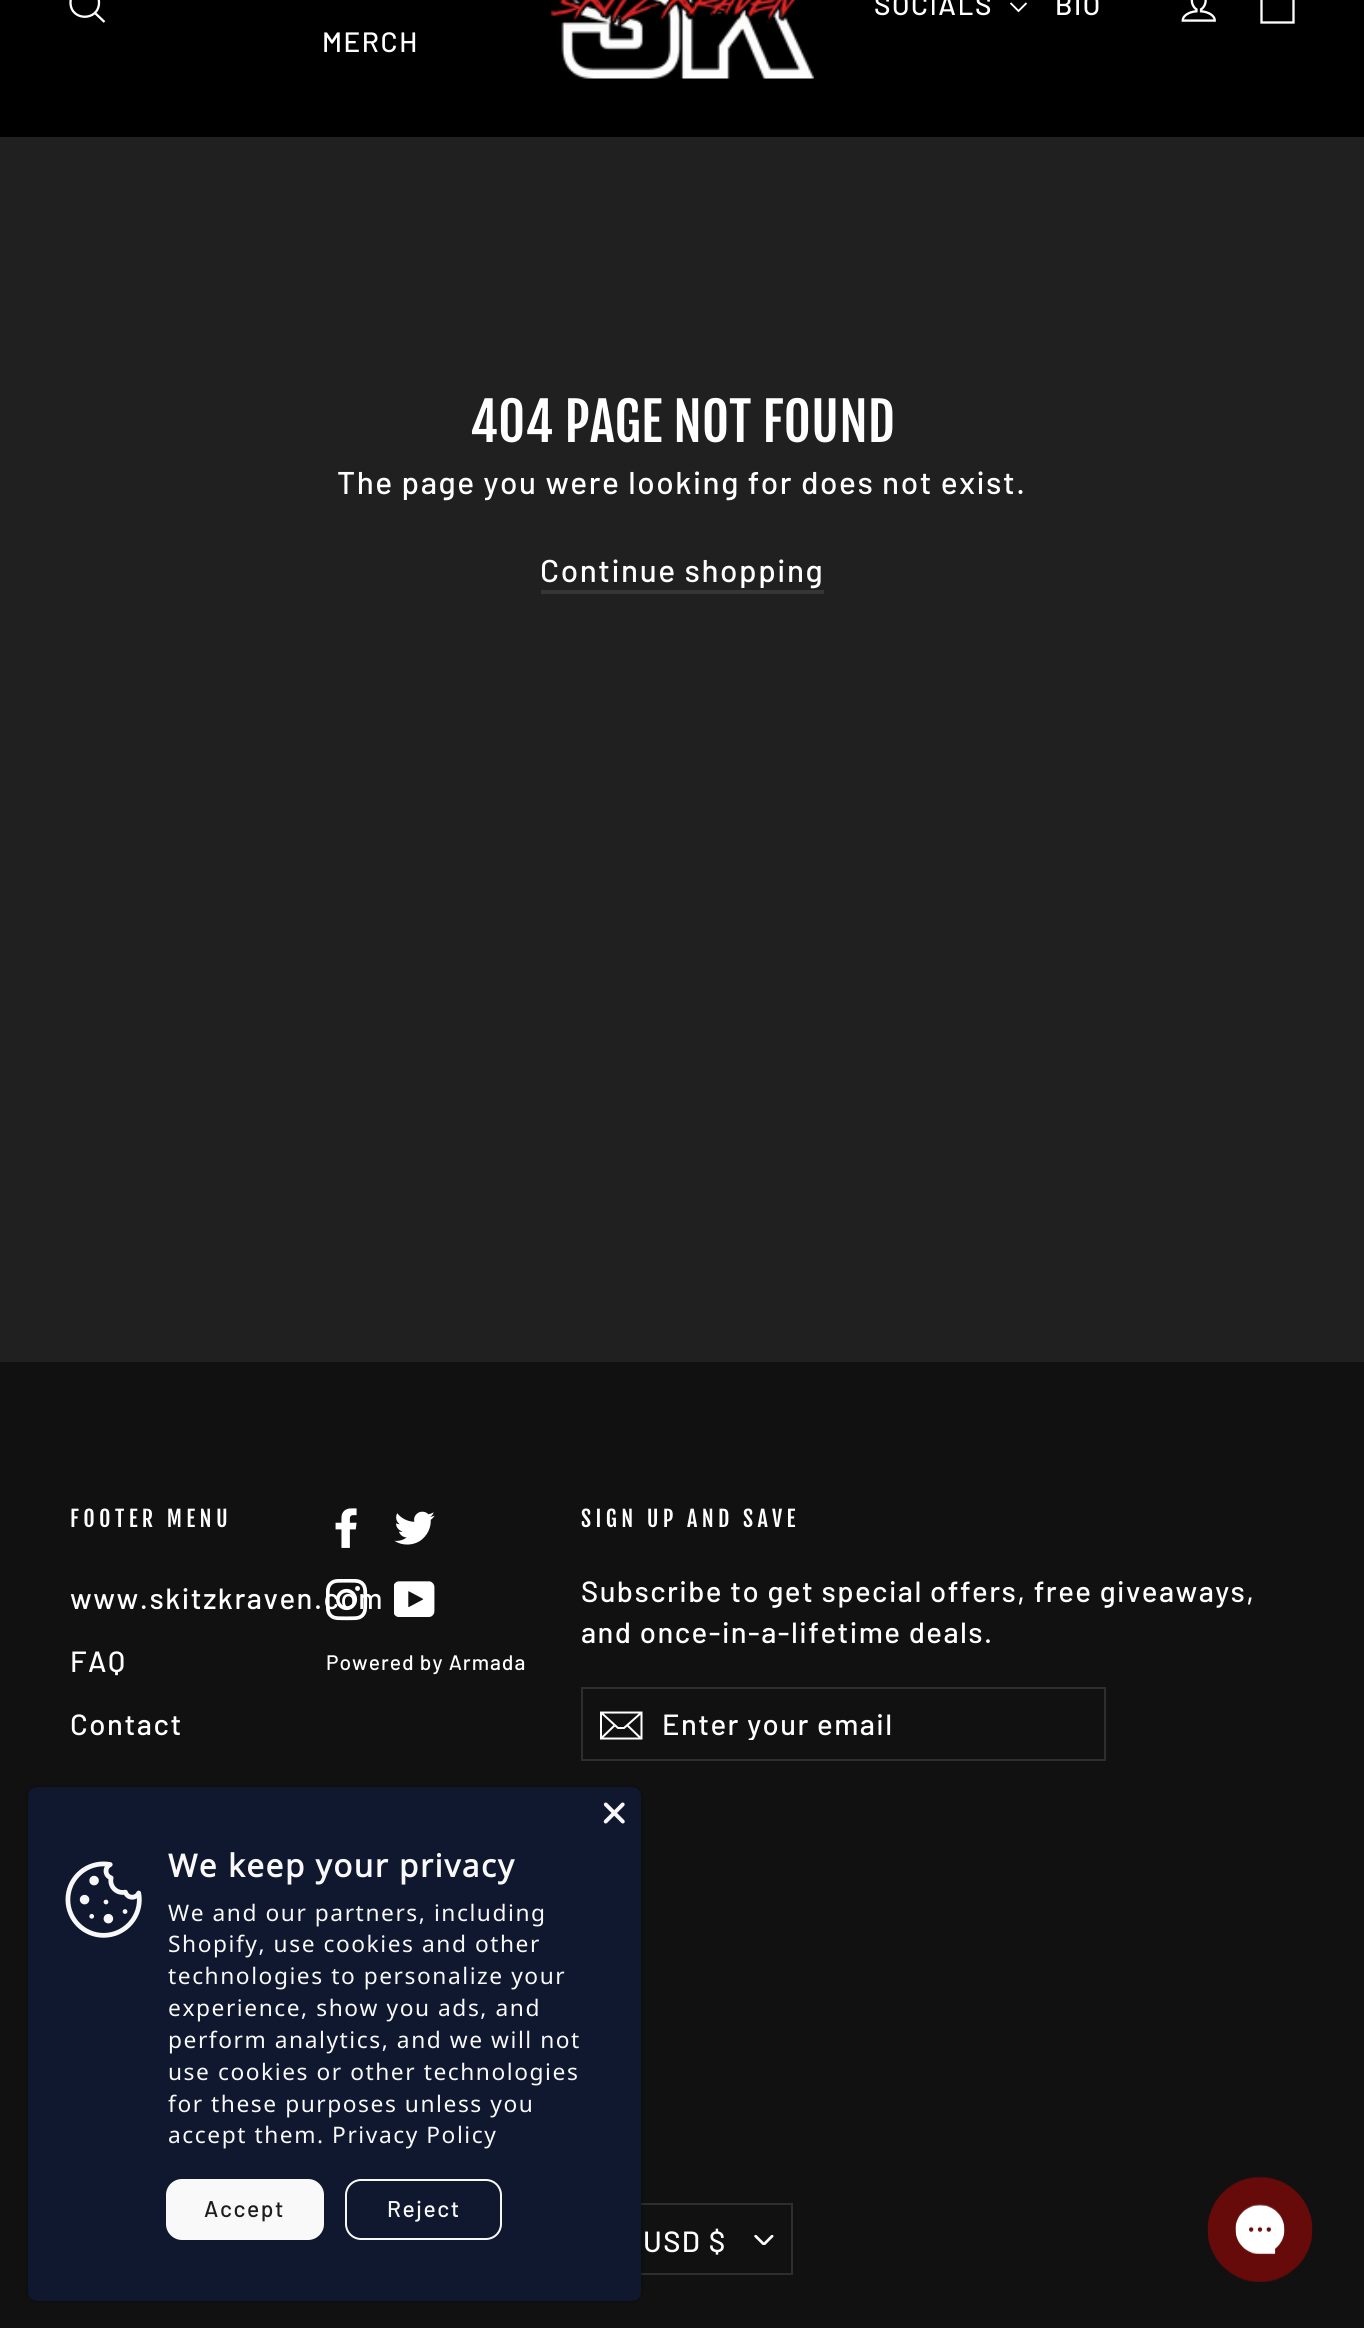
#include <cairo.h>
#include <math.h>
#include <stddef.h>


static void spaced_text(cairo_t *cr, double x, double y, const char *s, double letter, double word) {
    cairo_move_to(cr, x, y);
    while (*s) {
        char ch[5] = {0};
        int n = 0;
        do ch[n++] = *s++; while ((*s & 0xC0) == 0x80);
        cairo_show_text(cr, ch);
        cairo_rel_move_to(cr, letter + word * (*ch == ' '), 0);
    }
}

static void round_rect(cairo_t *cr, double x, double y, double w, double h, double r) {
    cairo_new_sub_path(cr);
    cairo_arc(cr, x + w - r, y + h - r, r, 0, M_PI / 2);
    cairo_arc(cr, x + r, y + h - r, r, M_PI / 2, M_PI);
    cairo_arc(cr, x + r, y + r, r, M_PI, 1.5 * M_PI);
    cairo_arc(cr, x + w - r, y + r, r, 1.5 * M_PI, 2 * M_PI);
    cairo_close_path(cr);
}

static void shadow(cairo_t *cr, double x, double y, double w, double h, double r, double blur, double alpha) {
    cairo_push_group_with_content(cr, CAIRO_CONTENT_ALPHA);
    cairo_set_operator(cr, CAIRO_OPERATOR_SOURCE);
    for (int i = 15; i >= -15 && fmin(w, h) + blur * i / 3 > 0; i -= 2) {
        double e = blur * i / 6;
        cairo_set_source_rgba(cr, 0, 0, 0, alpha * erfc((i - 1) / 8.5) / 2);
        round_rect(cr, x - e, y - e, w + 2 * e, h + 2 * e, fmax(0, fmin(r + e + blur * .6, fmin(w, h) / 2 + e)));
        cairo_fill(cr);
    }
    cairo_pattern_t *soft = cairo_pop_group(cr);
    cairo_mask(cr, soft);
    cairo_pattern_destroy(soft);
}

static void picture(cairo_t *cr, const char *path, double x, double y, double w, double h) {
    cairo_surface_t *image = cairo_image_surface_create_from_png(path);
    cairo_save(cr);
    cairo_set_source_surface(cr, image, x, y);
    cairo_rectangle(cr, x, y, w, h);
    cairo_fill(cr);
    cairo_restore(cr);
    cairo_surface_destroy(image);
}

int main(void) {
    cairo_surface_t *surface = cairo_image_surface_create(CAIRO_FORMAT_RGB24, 1364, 2328);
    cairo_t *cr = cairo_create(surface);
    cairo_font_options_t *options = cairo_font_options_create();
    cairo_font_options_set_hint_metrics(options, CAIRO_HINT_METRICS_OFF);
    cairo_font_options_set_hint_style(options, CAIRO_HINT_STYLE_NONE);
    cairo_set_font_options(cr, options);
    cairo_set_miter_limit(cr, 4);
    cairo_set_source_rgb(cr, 0.125, 0.125, 0.125);
    cairo_paint(cr);
    cairo_set_source_rgb(cr, 0, 0, 0);
    cairo_rectangle(cr, 0, 0, 1364, 137);
    cairo_fill(cr);
    cairo_new_path(cr);
    cairo_move_to(cr, 99, 2.5);
    cairo_curve_to(cr, 99, 21.5, 70.5, 21.5, 70.5, 2.5);
    cairo_curve_to(cr, 70.5, -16, 99, -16, 99, 2.5);
    cairo_close_path(cr);
    cairo_move_to(cr, 104.5, 22);
    cairo_line_to(cr, 95, 13);
    cairo_set_source_rgb(cr, 1, 1, 1);
    cairo_set_line_width(cr, 2.3);
    cairo_stroke(cr);
    picture(cr, "img1.png", 551, 0, 263, 79);
    cairo_select_font_face(cr, "Barlow Medium", CAIRO_FONT_SLANT_NORMAL, CAIRO_FONT_WEIGHT_NORMAL);
    cairo_set_font_size(cr, 28);
    spaced_text(cr, 874, 15, "SOCIALS", 1.55, 0);
    cairo_new_path(cr);
    cairo_move_to(cr, 1010.5, 3);
    cairo_line_to(cr, 1018.5, 11);
    cairo_line_to(cr, 1026.5, 3);
    cairo_set_line_width(cr, 1.9);
    cairo_stroke(cr);
    spaced_text(cr, 1055, 15, "BIO", 1.55, 0);
    spaced_text(cr, 322, 52, "MERCH", 1.55, 0);
    picture(cr, "img2.png", 1181, 0, 35, 22);
    cairo_new_path(cr);
    cairo_move_to(cr, 1261.5, -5.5);
    cairo_line_to(cr, 1293.5, -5.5);
    cairo_line_to(cr, 1293.5, 22.5);
    cairo_line_to(cr, 1261.5, 22.5);
    cairo_close_path(cr);
    cairo_set_line_width(cr, 2.3);
    cairo_stroke(cr);
    cairo_select_font_face(cr, "Fjalla One", CAIRO_FONT_SLANT_NORMAL, CAIRO_FONT_WEIGHT_NORMAL);
    cairo_set_font_size(cr, 52.5);
    cairo_move_to(cr, 470, 442);
    cairo_show_text(cr, "404 PAGE NOT FOUND");
    cairo_select_font_face(cr, "Barlow Medium", CAIRO_FONT_SLANT_NORMAL, CAIRO_FONT_WEIGHT_NORMAL);
    cairo_set_font_size(cr, 31.5);
    spaced_text(cr, 337, 494, "The page you were looking for does not exist.", 1.55, 0);
    spaced_text(cr, 540, 582, "Continue shopping", 1.55, 0);
    cairo_set_source_rgb(cr, 0.212, 0.212, 0.212);
    cairo_rectangle(cr, 541, 590, 283, 4);
    cairo_fill(cr);
    cairo_set_source_rgb(cr, 0.067, 0.067, 0.067);
    cairo_rectangle(cr, 0, 1362, 1364, 966);
    cairo_fill(cr);
    cairo_select_font_face(cr, "Fjalla One", CAIRO_FONT_SLANT_NORMAL, CAIRO_FONT_WEIGHT_NORMAL);
    cairo_set_font_size(cr, 22);
    cairo_set_source_rgb(cr, 1, 1, 1);
    spaced_text(cr, 70, 1527, "FOOTER MENU", 4.4, 0);
    cairo_select_font_face(cr, "Barlow Medium", CAIRO_FONT_SLANT_NORMAL, CAIRO_FONT_WEIGHT_NORMAL);
    cairo_set_font_size(cr, 29.25);
    spaced_text(cr, 70, 1609, "www.skitzkraven.com", 1.55, 0);
    spaced_text(cr, 70, 1672, "FAQ", 1.55, 0);
    spaced_text(cr, 70, 1735, "Contact", 1.55, 0);
    picture(cr, "img3.png", 335, 1508, 22, 40);
    picture(cr, "img4.png", 394, 1511, 41, 34);
    picture(cr, "img5.png", 326, 1579, 42, 42);
    picture(cr, "img6.png", 394, 1581, 41, 36);
    cairo_set_font_size(cr, 21);
    spaced_text(cr, 326, 1670, "Powered by Armada", 1, 0);
    cairo_select_font_face(cr, "Fjalla One", CAIRO_FONT_SLANT_NORMAL, CAIRO_FONT_WEIGHT_NORMAL);
    cairo_set_font_size(cr, 22);
    spaced_text(cr, 581, 1527, "SIGN UP AND SAVE", 4.4, 0);
    cairo_select_font_face(cr, "Barlow Medium", CAIRO_FONT_SLANT_NORMAL, CAIRO_FONT_WEIGHT_NORMAL);
    cairo_set_font_size(cr, 29.25);
    spaced_text(cr, 581, 1602, "Subscribe to get special offers, free giveaways,", 1.45, 0);
    spaced_text(cr, 581, 1643, "and once-in-a-lifetime deals.", 1.45, 0);
    cairo_rectangle(cr, 582, 1688, 523, 72);
    cairo_set_source_rgb(cr, 0.18, 0.18, 0.18);
    cairo_set_line_width(cr, 2);
    cairo_stroke(cr);
    cairo_new_path(cr);
    cairo_move_to(cr, 641.5, 1738.5);
    cairo_line_to(cr, 601, 1738.5);
    cairo_line_to(cr, 601, 1712.5);
    cairo_line_to(cr, 641.5, 1712.5);
    cairo_close_path(cr);
    cairo_move_to(cr, 601, 1712.5);
    cairo_line_to(cr, 618, 1728);
    cairo_line_to(cr, 624, 1728);
    cairo_line_to(cr, 641.5, 1712.5);
    cairo_move_to(cr, 614.5, 1725.5);
    cairo_line_to(cr, 601.5, 1738);
    cairo_move_to(cr, 641, 1738.5);
    cairo_line_to(cr, 627.5, 1725.5);
    cairo_set_source_rgb(cr, 1, 1, 1);
    cairo_stroke(cr);
    cairo_save(cr);
    cairo_rectangle(cr, 662, 1705, 425, 35);
    cairo_clip(cr);
    spaced_text(cr, 662, 1735, "Enter your email", 1.45, 0);
    cairo_restore(cr);
    picture(cr, "img7.png", 754, 2235, 20, 10);
    cairo_rectangle(cr, 573, 2204, 219, 70);
    cairo_set_source_rgb(cr, 0.18, 0.18, 0.18);
    cairo_stroke(cr);
    cairo_set_source_rgb(cr, 1, 1, 1);
    spaced_text(cr, 643, 2252, "USD $", 1.45, 0);
    cairo_set_source_rgb(cr, 0, 0, 0);
    shadow(cr, 28, 1787, 613, 514, 9, 2, 0.5);
    cairo_set_source_rgb(cr, 0.063, 0.094, 0.184);
    round_rect(cr, 28, 1787, 613, 514, 9);
    cairo_fill(cr);
    picture(cr, "img8.png", 603, 1802, 22, 22);
    picture(cr, "img9.png", 65, 1861, 77, 77);
    cairo_select_font_face(cr, "Noto Sans", CAIRO_FONT_SLANT_NORMAL, CAIRO_FONT_WEIGHT_BOLD);
    cairo_set_font_size(cr, 31.5);
    cairo_set_source_rgb(cr, 0.973, 0.973, 0.973);
    spaced_text(cr, 168, 1877, "We keep your privacy", 1.55, 0);
    cairo_select_font_face(cr, "Noto Sans", CAIRO_FONT_SLANT_NORMAL, CAIRO_FONT_WEIGHT_NORMAL);
    cairo_set_font_size(cr, 22.75);
    spaced_text(cr, 168, 1921, "We and our partners, including", 1.55, 0);
    spaced_text(cr, 168, 1952, "Shopify, use cookies and other", 1.55, 0);
    spaced_text(cr, 168, 1984, "technologies to personalize your", 1.55, 0);
    spaced_text(cr, 168, 2016, "experience, show you ads, and", 1.55, 0);
    spaced_text(cr, 168, 2048, "perform analytics, and we will not", 1.55, 0);
    spaced_text(cr, 168, 2080, "use cookies or other technologies", 1.55, 0);
    spaced_text(cr, 168, 2112, "for these purposes unless you", 1.55, 0);
    spaced_text(cr, 168, 2143, "accept them. Privacy Policy", 1.55, 0);
    round_rect(cr, 166, 2179, 158, 61, 16);
    cairo_fill(cr);
    cairo_select_font_face(cr, "Barlow Medium", CAIRO_FONT_SLANT_NORMAL, CAIRO_FONT_WEIGHT_NORMAL);
    cairo_set_source_rgb(cr, 0.114, 0.114, 0.114);
    spaced_text(cr, 204, 2217, "Accept", 1.55, 0);
    round_rect(cr, 346, 2180, 155, 59, 15);
    cairo_set_source_rgb(cr, 0.973, 0.973, 0.973);
    cairo_stroke(cr);
    spaced_text(cr, 387, 2217, "Reject", 1.55, 0);
    picture(cr, "img10.png", 1207, 2176, 106, 106);
    cairo_surface_write_to_png(surface, "page.png");
    cairo_font_options_destroy(options);
    cairo_destroy(cr);
    cairo_surface_destroy(surface);
    return 0;
}
